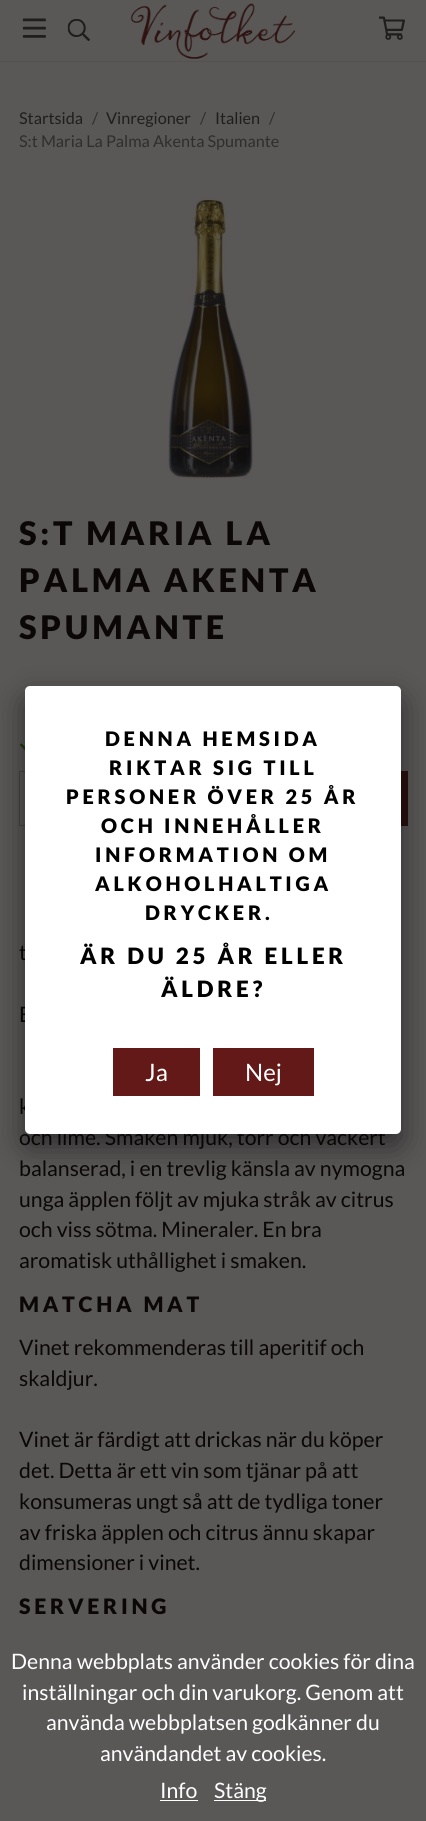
#include <cairo.h>
#include <math.h>
#include <stddef.h>


static void spaced_text(cairo_t *cr, double x, double y, const char *s, double letter, double word) {
    cairo_move_to(cr, x, y);
    while (*s) {
        char ch[5] = {0};
        int n = 0;
        do ch[n++] = *s++; while ((*s & 0xC0) == 0x80);
        cairo_show_text(cr, ch);
        cairo_rel_move_to(cr, letter + word * (*ch == ' '), 0);
    }
}

static void round_rect(cairo_t *cr, double x, double y, double w, double h, double r) {
    cairo_new_sub_path(cr);
    cairo_arc(cr, x + w - r, y + h - r, r, 0, M_PI / 2);
    cairo_arc(cr, x + r, y + h - r, r, M_PI / 2, M_PI);
    cairo_arc(cr, x + r, y + r, r, M_PI, 1.5 * M_PI);
    cairo_arc(cr, x + w - r, y + r, r, 1.5 * M_PI, 2 * M_PI);
    cairo_close_path(cr);
}

static void shadow(cairo_t *cr, double x, double y, double w, double h, double r, double blur, double alpha) {
    cairo_push_group_with_content(cr, CAIRO_CONTENT_ALPHA);
    cairo_set_operator(cr, CAIRO_OPERATOR_SOURCE);
    for (int i = 15; i >= -15 && fmin(w, h) + blur * i / 3 > 0; i -= 2) {
        double e = blur * i / 6;
        cairo_set_source_rgba(cr, 0, 0, 0, alpha * erfc((i - 1) / 8.5) / 2);
        round_rect(cr, x - e, y - e, w + 2 * e, h + 2 * e, fmax(0, fmin(r + e + blur * .6, fmin(w, h) / 2 + e)));
        cairo_fill(cr);
    }
    cairo_pattern_t *soft = cairo_pop_group(cr);
    cairo_mask(cr, soft);
    cairo_pattern_destroy(soft);
}

static void picture(cairo_t *cr, const char *path, double x, double y, double w, double h) {
    cairo_surface_t *image = cairo_image_surface_create_from_png(path);
    cairo_save(cr);
    cairo_set_source_surface(cr, image, x, y);
    cairo_rectangle(cr, x, y, w, h);
    cairo_fill(cr);
    cairo_restore(cr);
    cairo_surface_destroy(image);
}

int main(void) {
    cairo_surface_t *surface = cairo_image_surface_create(CAIRO_FORMAT_RGB24, 426, 1821);
    cairo_t *cr = cairo_create(surface);
    cairo_font_options_t *options = cairo_font_options_create();
    cairo_font_options_set_hint_metrics(options, CAIRO_HINT_METRICS_OFF);
    cairo_font_options_set_hint_style(options, CAIRO_HINT_STYLE_NONE);
    cairo_set_font_options(cr, options);
    cairo_set_miter_limit(cr, 4);
    cairo_set_source_rgb(cr, 0.353, 0.341, 0.341);
    cairo_paint(cr);
    cairo_set_source_rgb(cr, 0.325, 0.318, 0.318);
    cairo_rectangle(cr, 0, 61, 426, 1);
    cairo_fill(cr);
    picture(cr, "img1.png", 22, 18, 24, 20);
    picture(cr, "img2.png", 67, 19, 23, 22);
    picture(cr, "img3.png", 131, 3, 164, 56);
    picture(cr, "img4.png", 379, 16, 26, 24);
    cairo_select_font_face(cr, "Lato", CAIRO_FONT_SLANT_NORMAL, CAIRO_FONT_WEIGHT_NORMAL);
    cairo_set_font_size(cr, 16.25);
    cairo_set_source_rgb(cr, 0.125, 0.114, 0.114);
    cairo_move_to(cr, 19, 124);
    cairo_show_text(cr, "Startsida");
    cairo_set_source_rgb(cr, 0.188, 0.176, 0.176);
    cairo_move_to(cr, 92, 124);
    cairo_show_text(cr, "/");
    cairo_set_source_rgb(cr, 0.125, 0.114, 0.114);
    cairo_move_to(cr, 106, 124);
    cairo_show_text(cr, "Vinregioner");
    cairo_set_source_rgb(cr, 0.188, 0.176, 0.176);
    cairo_move_to(cr, 200, 124);
    cairo_show_text(cr, "/");
    cairo_set_source_rgb(cr, 0.125, 0.114, 0.114);
    cairo_move_to(cr, 215, 124);
    cairo_show_text(cr, "Italien");
    cairo_set_source_rgb(cr, 0.188, 0.176, 0.176);
    cairo_move_to(cr, 269, 124);
    cairo_show_text(cr, "/");
    cairo_move_to(cr, 19, 147);
    cairo_show_text(cr, "S:t Maria La Palma Akenta Spumante");
    picture(cr, "img5.png", 164, 194, 90, 285);
    cairo_select_font_face(cr, "Lato Black", CAIRO_FONT_SLANT_NORMAL, CAIRO_FONT_WEIGHT_NORMAL);
    cairo_set_font_size(cr, 32.5);
    cairo_set_source_rgb(cr, 0.043, 0.031, 0.031);
    spaced_text(cr, 19, 545, "S:T MARIA LA", 3.75, 0);
    spaced_text(cr, 19, 592, "PALMA AKENTA", 3.75, 0);
    spaced_text(cr, 19, 639, "SPUMANTE", 3.75, 0);
    picture(cr, "img6.png", 19, 743, 6, 8);
    cairo_rectangle(cr, 19.5, 771.5, 49, 54);
    cairo_set_source_rgb(cr, 0.278, 0.267, 0.267);
    cairo_set_line_width(cr, 1);
    cairo_stroke(cr);
    cairo_set_source_rgb(cr, 0.165, 0.063, 0.059);
    cairo_rectangle(cr, 401, 771, 7, 55);
    cairo_fill(cr);
    cairo_select_font_face(cr, "Lato", CAIRO_FONT_SLANT_NORMAL, CAIRO_FONT_WEIGHT_NORMAL);
    cairo_set_font_size(cr, 21.25);
    cairo_set_source_rgb(cr, 0.043, 0.031, 0.031);
    cairo_move_to(cr, 19, 960);
    cairo_show_text(cr, "t");
    cairo_move_to(cr, 19, 1022);
    cairo_show_text(cr, "E");
    cairo_move_to(cr, 19, 1114);
    cairo_show_text(cr, "k");
    cairo_move_to(cr, 19, 1145);
    cairo_show_text(cr, "och lime. Smaken mjuk, torr och vackert");
    cairo_move_to(cr, 19, 1176);
    cairo_show_text(cr, "balanserad, i en trevlig känsla av nymogna");
    cairo_move_to(cr, 19, 1207);
    cairo_show_text(cr, "unga äpplen följt av mjuka stråk av citrus");
    cairo_move_to(cr, 19, 1237);
    cairo_show_text(cr, "och viss sötma. Mineraler. En bra");
    cairo_move_to(cr, 19, 1268);
    cairo_show_text(cr, "aromatisk uthållighet i smaken.");
    cairo_select_font_face(cr, "Lato Black", CAIRO_FONT_SLANT_NORMAL, CAIRO_FONT_WEIGHT_NORMAL);
    spaced_text(cr, 19, 1312, "MATCHA MAT", 3.75, 0);
    cairo_select_font_face(cr, "Lato", CAIRO_FONT_SLANT_NORMAL, CAIRO_FONT_WEIGHT_NORMAL);
    cairo_move_to(cr, 19, 1355);
    cairo_show_text(cr, "Vinet rekommenderas till aperitif och");
    cairo_move_to(cr, 19, 1386);
    cairo_show_text(cr, "skaldjur.");
    cairo_move_to(cr, 19, 1447);
    cairo_show_text(cr, "Vinet är färdigt att drickas när du köper");
    cairo_move_to(cr, 19, 1478);
    cairo_show_text(cr, "det. Detta är ett vin som tjänar på att");
    cairo_move_to(cr, 19, 1509);
    cairo_show_text(cr, "konsumeras ungt så att de tydliga toner");
    cairo_move_to(cr, 19, 1540);
    cairo_show_text(cr, "av friska äpplen och citrus ännu skapar");
    cairo_move_to(cr, 19, 1570);
    cairo_show_text(cr, "dimensioner i vinet.");
    cairo_select_font_face(cr, "Lato Black", CAIRO_FONT_SLANT_NORMAL, CAIRO_FONT_WEIGHT_NORMAL);
    spaced_text(cr, 19, 1614, "SERVERING", 3.75, 0);
    cairo_set_source_rgb(cr, 0, 0, 0);
    shadow(cr, 25, 699, 376, 447, 5, 15.5, 0.5);
    cairo_set_source_rgb(cr, 1, 1, 1);
    round_rect(cr, 25, 686, 376, 448, 5);
    cairo_fill(cr);
    cairo_set_font_size(cr, 20);
    cairo_set_source_rgb(cr, 0, 0, 0);
    spaced_text(cr, 105, 746, "DENNA HEMSIDA", 3.75, 0);
    spaced_text(cr, 109, 775, "RIKTAR SIG TILL", 3.75, 0);
    spaced_text(cr, 66, 804, "PERSONER ÖVER 25 ÅR", 3.75, 0);
    spaced_text(cr, 101, 833, "OCH INNEHÅLLER", 3.75, 0);
    spaced_text(cr, 95, 862, "INFORMATION OM", 3.75, 0);
    spaced_text(cr, 95, 891, "ALKOHOLHALTIGA", 3.75, 0);
    spaced_text(cr, 145, 920, "DRYCKER.", 3.75, 0);
    cairo_set_font_size(cr, 22.5);
    spaced_text(cr, 80, 964, "ÄR DU 25 ÅR ELLER", 3.75, 0);
    spaced_text(cr, 161, 997, "ÄLDRE?", 3.75, 0);
    cairo_set_source_rgb(cr, 0.388, 0.098, 0.09);
    cairo_rectangle(cr, 113, 1048, 87, 48);
    cairo_fill(cr);
    cairo_select_font_face(cr, "Lato", CAIRO_FONT_SLANT_NORMAL, CAIRO_FONT_WEIGHT_NORMAL);
    cairo_set_font_size(cr, 24);
    cairo_set_source_rgb(cr, 1, 1, 1);
    cairo_move_to(cr, 145, 1081);
    cairo_show_text(cr, "Ja");
    cairo_set_source_rgb(cr, 0.388, 0.098, 0.09);
    cairo_rectangle(cr, 213, 1048, 101, 48);
    cairo_fill(cr);
    cairo_set_source_rgb(cr, 1, 1, 1);
    cairo_move_to(cr, 245, 1081);
    cairo_show_text(cr, "Nej");
    cairo_set_font_size(cr, 21.25);
    cairo_move_to(cr, 11, 1669);
    cairo_show_text(cr, "Denna webbplats använder cookies för dina");
    cairo_move_to(cr, 22, 1700);
    cairo_show_text(cr, "inställningar och din varukorg. Genom att");
    cairo_move_to(cr, 46, 1730);
    cairo_show_text(cr, "använda webbplatsen godkänner du");
    cairo_move_to(cr, 100, 1761);
    cairo_show_text(cr, "användandet av cookies.");
    cairo_move_to(cr, 160, 1798);
    cairo_show_text(cr, "Info");
    cairo_rectangle(cr, 160, 1800, 38, 1);
    cairo_fill(cr);
    cairo_rectangle(cr, 214, 1800, 52, 1);
    cairo_fill(cr);
    cairo_move_to(cr, 214, 1798);
    cairo_show_text(cr, "Stäng");
    cairo_surface_write_to_png(surface, "page.png");
    cairo_font_options_destroy(options);
    cairo_destroy(cr);
    cairo_surface_destroy(surface);
    return 0;
}
